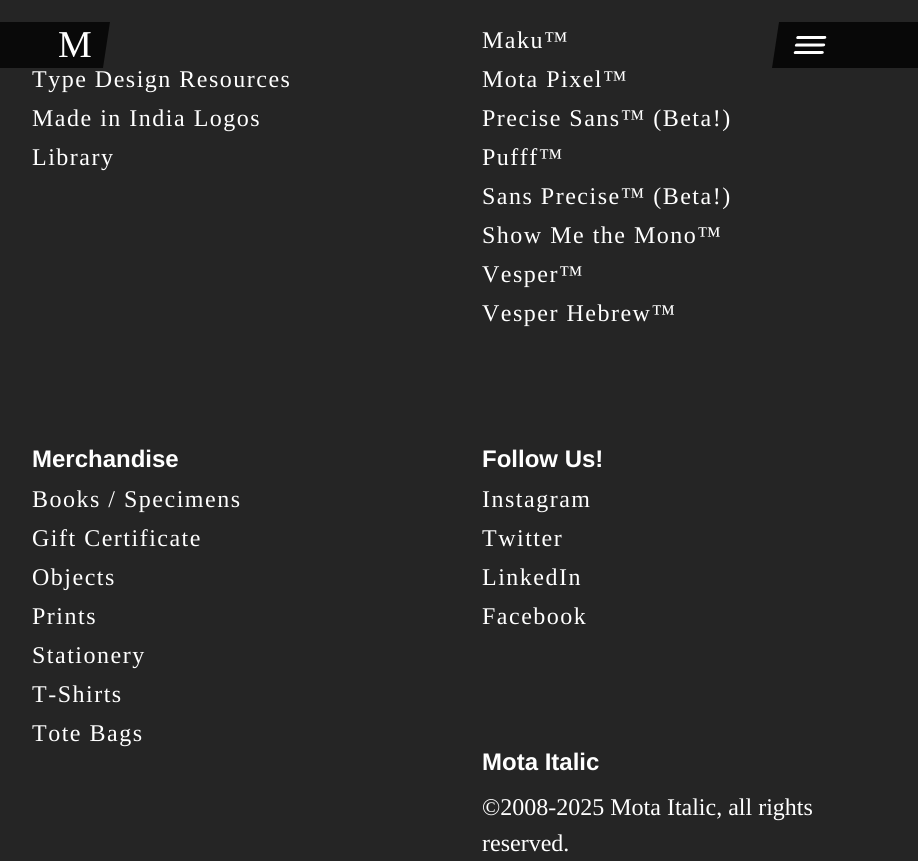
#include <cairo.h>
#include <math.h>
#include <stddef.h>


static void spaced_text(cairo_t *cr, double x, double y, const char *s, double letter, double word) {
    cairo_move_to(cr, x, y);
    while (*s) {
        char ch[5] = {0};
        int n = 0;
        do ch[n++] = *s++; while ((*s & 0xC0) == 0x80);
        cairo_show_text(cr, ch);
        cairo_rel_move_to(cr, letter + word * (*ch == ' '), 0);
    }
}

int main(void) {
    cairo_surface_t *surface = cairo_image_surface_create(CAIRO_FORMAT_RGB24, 918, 861);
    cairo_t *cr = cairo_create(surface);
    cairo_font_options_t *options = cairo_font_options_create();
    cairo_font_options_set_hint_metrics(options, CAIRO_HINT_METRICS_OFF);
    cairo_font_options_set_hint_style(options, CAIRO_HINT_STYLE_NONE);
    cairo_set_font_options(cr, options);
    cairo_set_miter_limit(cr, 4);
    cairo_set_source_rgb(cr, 0.145, 0.145, 0.145);
    cairo_paint(cr);
    cairo_select_font_face(cr, "Liberation Serif", CAIRO_FONT_SLANT_NORMAL, CAIRO_FONT_WEIGHT_NORMAL);
    cairo_set_font_size(cr, 24);
    cairo_set_source_rgb(cr, 1, 1, 1);
    spaced_text(cr, 32, 87, "Type Design Resources", 1.5, 0);
    spaced_text(cr, 32, 126, "Made in India Logos", 1.5, 0);
    spaced_text(cr, 32, 165, "Library", 1.5, 0);
    spaced_text(cr, 482, 48, "Maku™", 1.5, 0);
    spaced_text(cr, 482, 87, "Mota Pixel™", 1.5, 0);
    spaced_text(cr, 482, 126, "Precise Sans™ (Beta!)", 1.5, 0);
    spaced_text(cr, 482, 165, "Pufff™", 1.5, 0);
    spaced_text(cr, 482, 204, "Sans Precise™ (Beta!)", 1.5, 0);
    spaced_text(cr, 482, 243, "Show Me the Mono™", 1.5, 0);
    spaced_text(cr, 482, 282, "Vesper™", 1.5, 0);
    spaced_text(cr, 482, 321, "Vesper Hebrew™", 1.5, 0);
    cairo_select_font_face(cr, "Liberation Sans", CAIRO_FONT_SLANT_NORMAL, CAIRO_FONT_WEIGHT_BOLD);
    cairo_move_to(cr, 32, 467);
    cairo_show_text(cr, "Merchandise");
    cairo_select_font_face(cr, "Liberation Serif", CAIRO_FONT_SLANT_NORMAL, CAIRO_FONT_WEIGHT_NORMAL);
    spaced_text(cr, 32, 507, "Books / Specimens", 1.5, 0);
    spaced_text(cr, 32, 546, "Gift Certificate", 1.5, 0);
    spaced_text(cr, 32, 585, "Objects", 1.5, 0);
    spaced_text(cr, 32, 624, "Prints", 1.5, 0);
    spaced_text(cr, 32, 663, "Stationery", 1.5, 0);
    spaced_text(cr, 32, 702, "T-Shirts", 1.5, 0);
    spaced_text(cr, 32, 741, "Tote Bags", 1.5, 0);
    cairo_select_font_face(cr, "Liberation Sans", CAIRO_FONT_SLANT_NORMAL, CAIRO_FONT_WEIGHT_BOLD);
    cairo_move_to(cr, 482, 467);
    cairo_show_text(cr, "Follow Us!");
    cairo_select_font_face(cr, "Liberation Serif", CAIRO_FONT_SLANT_NORMAL, CAIRO_FONT_WEIGHT_NORMAL);
    spaced_text(cr, 482, 507, "Instagram", 1.5, 0);
    spaced_text(cr, 482, 546, "Twitter", 1.5, 0);
    spaced_text(cr, 482, 585, "LinkedIn", 1.5, 0);
    spaced_text(cr, 482, 624, "Facebook", 1.5, 0);
    cairo_select_font_face(cr, "Liberation Sans", CAIRO_FONT_SLANT_NORMAL, CAIRO_FONT_WEIGHT_BOLD);
    cairo_move_to(cr, 482, 770);
    cairo_show_text(cr, "Mota Italic");
    cairo_select_font_face(cr, "Liberation Serif", CAIRO_FONT_SLANT_NORMAL, CAIRO_FONT_WEIGHT_NORMAL);
    cairo_move_to(cr, 482, 815);
    cairo_show_text(cr, "©2008-2025 Mota Italic, all rights");
    cairo_move_to(cr, 482, 851);
    cairo_show_text(cr, "reserved.");
    cairo_set_source_rgba(cr, 0, 0, 0, 0.75);
    cairo_new_path(cr);
    cairo_move_to(cr, -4, 22);
    cairo_line_to(cr, 110, 22);
    cairo_line_to(cr, 103, 68);
    cairo_line_to(cr, -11, 68);
    cairo_close_path(cr);
    cairo_fill(cr);
    cairo_set_font_size(cr, 38);
    cairo_set_source_rgb(cr, 1, 1, 1);
    cairo_move_to(cr, 58, 57);
    cairo_show_text(cr, "M");
    cairo_set_source_rgb(cr, 0.035, 0.035, 0.035);
    cairo_new_path(cr);
    cairo_move_to(cr, 779, 22);
    cairo_line_to(cr, 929, 22);
    cairo_line_to(cr, 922, 68);
    cairo_line_to(cr, 772, 68);
    cairo_close_path(cr);
    cairo_fill(cr);
    cairo_set_source_rgb(cr, 1, 1, 1);
    cairo_new_path(cr);
    cairo_move_to(cr, 798, 36);
    cairo_line_to(cr, 825.5, 36);
    cairo_line_to(cr, 826, 36.5);
    cairo_curve_to(cr, 827.5, 39.5, 823, 39, 820, 39);
    cairo_line_to(cr, 797, 39);
    cairo_curve_to(cr, 795.5, 38, 796.5, 36, 798, 36);
    cairo_close_path(cr);
    cairo_move_to(cr, 797, 43.5);
    cairo_line_to(cr, 824, 43.5);
    cairo_line_to(cr, 825, 44);
    cairo_curve_to(cr, 826, 47, 822, 46.5, 818.5, 46.5);
    cairo_line_to(cr, 795.5, 46.5);
    cairo_curve_to(cr, 794, 45.5, 795.5, 43.5, 797, 43.5);
    cairo_close_path(cr);
    cairo_move_to(cr, 795.5, 51);
    cairo_line_to(cr, 822.5, 51);
    cairo_line_to(cr, 823.5, 51.5);
    cairo_curve_to(cr, 825, 54.5, 820.5, 54, 817.5, 54);
    cairo_line_to(cr, 794.5, 54);
    cairo_curve_to(cr, 793, 53, 794, 51, 795.5, 51);
    cairo_close_path(cr);
    cairo_fill(cr);
    cairo_surface_write_to_png(surface, "page.png");
    cairo_font_options_destroy(options);
    cairo_destroy(cr);
    cairo_surface_destroy(surface);
    return 0;
}
